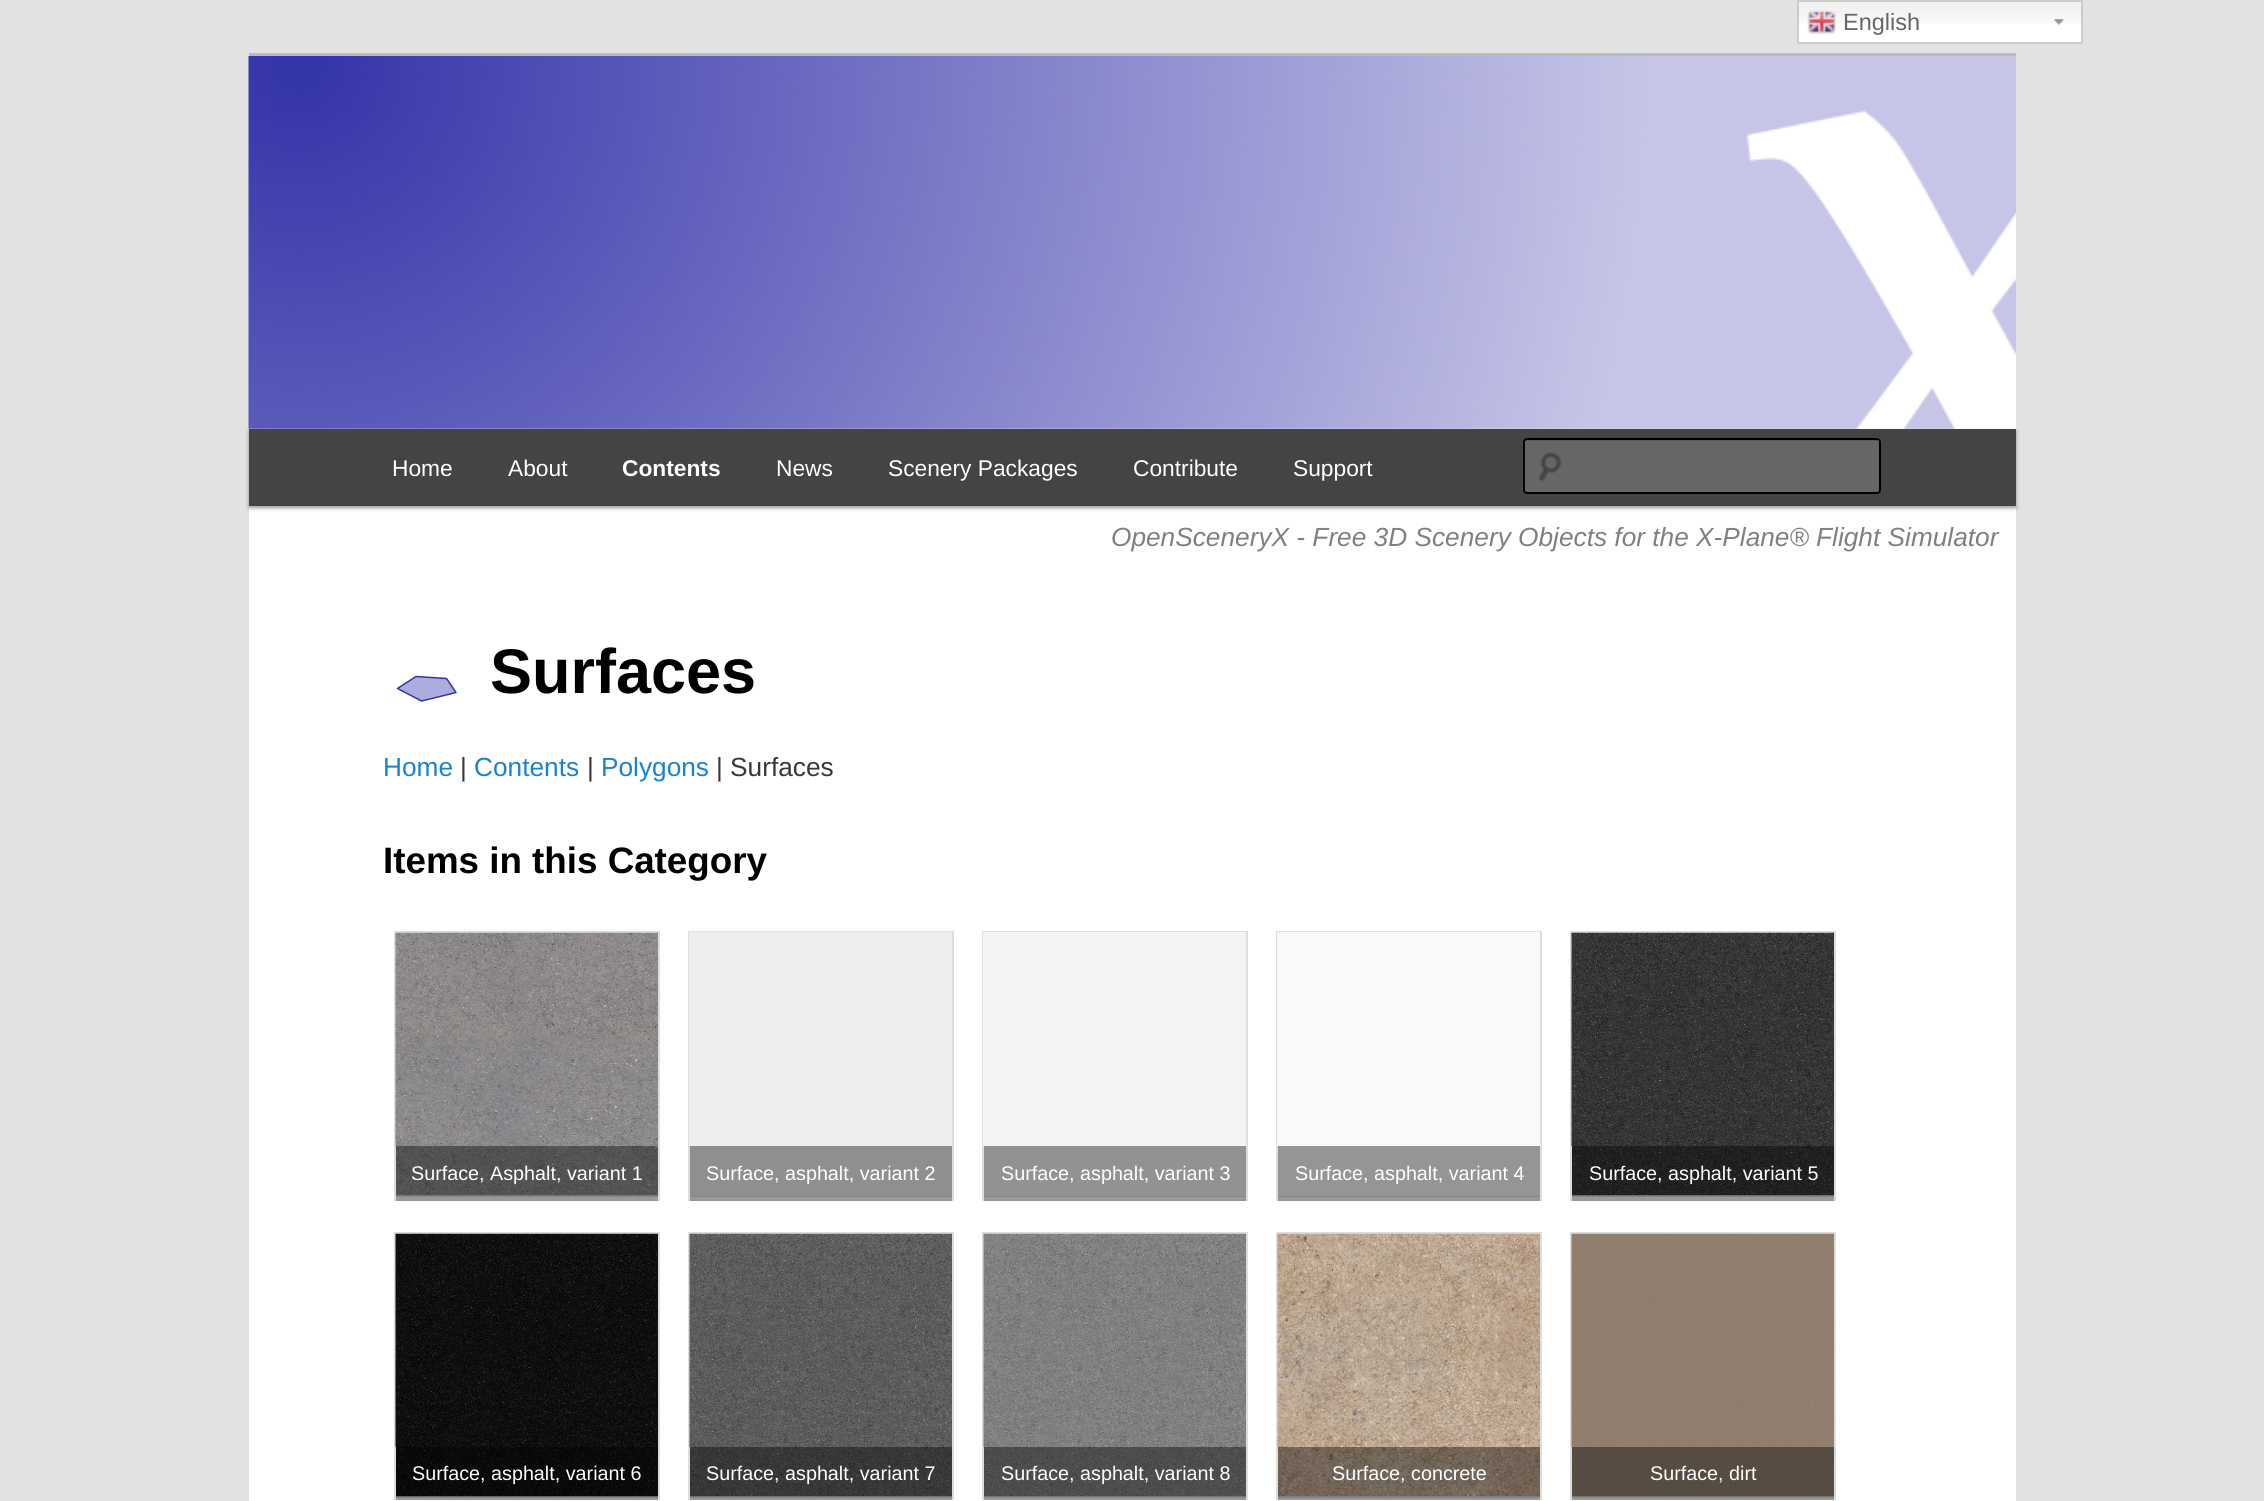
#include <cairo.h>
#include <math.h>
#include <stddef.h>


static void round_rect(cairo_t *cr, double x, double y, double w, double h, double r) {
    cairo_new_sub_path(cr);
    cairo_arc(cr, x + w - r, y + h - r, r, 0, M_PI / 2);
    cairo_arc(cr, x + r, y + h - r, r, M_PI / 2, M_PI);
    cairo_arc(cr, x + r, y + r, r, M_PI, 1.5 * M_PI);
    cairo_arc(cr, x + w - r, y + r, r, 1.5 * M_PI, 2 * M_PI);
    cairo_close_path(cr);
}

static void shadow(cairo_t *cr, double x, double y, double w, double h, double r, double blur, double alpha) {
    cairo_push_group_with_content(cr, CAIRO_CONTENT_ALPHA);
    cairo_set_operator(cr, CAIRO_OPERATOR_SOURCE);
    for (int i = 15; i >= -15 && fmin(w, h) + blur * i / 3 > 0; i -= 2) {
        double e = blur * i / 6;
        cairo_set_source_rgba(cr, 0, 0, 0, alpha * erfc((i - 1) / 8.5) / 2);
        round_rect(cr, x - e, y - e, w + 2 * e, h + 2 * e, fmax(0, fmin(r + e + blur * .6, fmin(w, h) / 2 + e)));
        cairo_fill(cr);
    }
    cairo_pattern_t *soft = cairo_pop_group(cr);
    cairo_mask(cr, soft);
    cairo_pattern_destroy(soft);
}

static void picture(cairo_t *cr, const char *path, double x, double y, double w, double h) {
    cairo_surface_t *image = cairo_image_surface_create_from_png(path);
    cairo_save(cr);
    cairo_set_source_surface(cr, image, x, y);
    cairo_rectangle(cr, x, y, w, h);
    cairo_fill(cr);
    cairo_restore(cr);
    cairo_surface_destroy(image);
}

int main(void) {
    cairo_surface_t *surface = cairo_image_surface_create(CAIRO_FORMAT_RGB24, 2264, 1501);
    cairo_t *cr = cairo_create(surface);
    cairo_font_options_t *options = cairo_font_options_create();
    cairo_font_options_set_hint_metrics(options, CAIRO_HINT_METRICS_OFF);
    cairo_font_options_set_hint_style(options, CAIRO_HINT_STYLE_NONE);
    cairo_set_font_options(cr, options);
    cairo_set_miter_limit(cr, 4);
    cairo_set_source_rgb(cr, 0.886, 0.886, 0.886);
    cairo_paint(cr);
    cairo_set_source_rgb(cr, 1, 1, 1);
    cairo_rectangle(cr, 1799, 24, 282, 18);
    cairo_fill(cr);
    picture(cr, "img1.png", 1799, 2, 282, 22);
    picture(cr, "img2.png", 2054, 19, 10, 6);
    cairo_rectangle(cr, 1798, 1, 284, 42);
    cairo_set_source_rgb(cr, 0.8, 0.8, 0.8);
    cairo_stroke(cr);
    picture(cr, "img3.png", 1807, 10, 29, 25);
    cairo_select_font_face(cr, "Liberation Sans", CAIRO_FONT_SLANT_NORMAL, CAIRO_FONT_WEIGHT_NORMAL);
    cairo_set_font_size(cr, 23.5);
    cairo_set_source_rgb(cr, 0.4, 0.4, 0.4);
    cairo_move_to(cr, 1843, 30);
    cairo_show_text(cr, "English");
    cairo_set_source_rgb(cr, 1, 1, 1);
    cairo_rectangle(cr, 249, 428, 1767, 1073);
    cairo_fill(cr);
    cairo_set_source_rgb(cr, 0.733, 0.733, 0.733);
    cairo_rectangle(cr, 249, 53, 1767, 3);
    cairo_fill(cr);
    cairo_set_source_rgb(cr, 0, 0, 0);
    shadow(cr, 249, 431, 1767, 77, 0, 2, 0.4);
    picture(cr, "img4.png", 248, 56, 1768, 373);
    cairo_set_source_rgb(cr, 0.267, 0.267, 0.267);
    cairo_rectangle(cr, 249, 429, 1767, 77);
    cairo_fill(cr);
    cairo_set_font_size(cr, 22.75);
    cairo_set_source_rgb(cr, 1, 1, 1);
    cairo_move_to(cr, 392, 476);
    cairo_show_text(cr, "Home");
    cairo_move_to(cr, 508, 476);
    cairo_show_text(cr, "About");
    cairo_select_font_face(cr, "Liberation Sans", CAIRO_FONT_SLANT_NORMAL, CAIRO_FONT_WEIGHT_BOLD);
    cairo_move_to(cr, 622, 476);
    cairo_show_text(cr, "Contents");
    cairo_select_font_face(cr, "Liberation Sans", CAIRO_FONT_SLANT_NORMAL, CAIRO_FONT_WEIGHT_NORMAL);
    cairo_move_to(cr, 776, 476);
    cairo_show_text(cr, "News");
    cairo_move_to(cr, 888, 476);
    cairo_show_text(cr, "Scenery Packages");
    cairo_move_to(cr, 1133, 476);
    cairo_show_text(cr, "Contribute");
    cairo_move_to(cr, 1293, 476);
    cairo_show_text(cr, "Support");
    cairo_set_source_rgb(cr, 0.4, 0.4, 0.4);
    round_rect(cr, 1523, 438, 358, 56, 4);
    cairo_fill(cr);
    picture(cr, "img5.png", 1538, 452, 24, 30);
    cairo_set_source_rgb(cr, 0.361, 0.361, 0.361);
    cairo_new_path(cr);
    cairo_move_to(cr, 1526, 441);
    cairo_line_to(cr, 1878, 441);
    cairo_curve_to(cr, 1879, 441, 1880, 442, 1880, 443);
    cairo_line_to(cr, 1880, 441);
    cairo_curve_to(cr, 1880, 440, 1879, 439, 1878, 439);
    cairo_line_to(cr, 1526, 439);
    cairo_curve_to(cr, 1525, 439, 1524, 440, 1524, 441);
    cairo_line_to(cr, 1524, 443);
    cairo_curve_to(cr, 1524, 442, 1525, 441, 1526, 441);
    cairo_close_path(cr);
    cairo_fill(cr);
    round_rect(cr, 1524, 439, 356, 54, 3);
    cairo_set_source_rgb(cr, 0, 0, 0);
    cairo_stroke(cr);
    cairo_select_font_face(cr, "Liberation Sans", CAIRO_FONT_SLANT_ITALIC, CAIRO_FONT_WEIGHT_NORMAL);
    cairo_set_font_size(cr, 26.25);
    cairo_set_source_rgb(cr, 0.502, 0.502, 0.502);
    cairo_move_to(cr, 1111, 546);
    cairo_show_text(cr, "OpenSceneryX - Free 3D Scenery Objects for the X-Plane® Flight Simulator");
    cairo_set_source_rgb(cr, 0.678, 0.678, 0.867);
    cairo_new_path(cr);
    cairo_move_to(cr, 447, 678);
    cairo_line_to(cr, 416, 677);
    cairo_line_to(cr, 397, 688);
    cairo_line_to(cr, 421, 701);
    cairo_line_to(cr, 456, 692);
    cairo_close_path(cr);
    cairo_fill(cr);
    cairo_new_path(cr);
    cairo_move_to(cr, 446.5, 678.5);
    cairo_line_to(cr, 416, 676.5);
    cairo_line_to(cr, 397.5, 688.5);
    cairo_line_to(cr, 421.5, 701);
    cairo_line_to(cr, 456, 692.5);
    cairo_close_path(cr);
    cairo_set_source_rgb(cr, 0.2, 0.2, 0.667);
    cairo_set_line_width(cr, 1.5);
    cairo_set_line_cap(cr, CAIRO_LINE_CAP_ROUND);
    cairo_set_line_join(cr, CAIRO_LINE_JOIN_ROUND);
    cairo_stroke(cr);
    cairo_select_font_face(cr, "Liberation Sans", CAIRO_FONT_SLANT_NORMAL, CAIRO_FONT_WEIGHT_BOLD);
    cairo_set_font_size(cr, 63);
    cairo_set_source_rgb(cr, 0, 0, 0);
    cairo_move_to(cr, 490, 693);
    cairo_show_text(cr, "Surfaces");
    cairo_select_font_face(cr, "Liberation Sans", CAIRO_FONT_SLANT_NORMAL, CAIRO_FONT_WEIGHT_NORMAL);
    cairo_set_font_size(cr, 26.25);
    cairo_set_source_rgb(cr, 0.098, 0.51, 0.82);
    cairo_move_to(cr, 383, 776);
    cairo_show_text(cr, "Home");
    cairo_set_source_rgb(cr, 0.216, 0.216, 0.216);
    cairo_move_to(cr, 460, 776);
    cairo_show_text(cr, "|");
    cairo_set_source_rgb(cr, 0.098, 0.51, 0.82);
    cairo_move_to(cr, 474, 776);
    cairo_show_text(cr, "Contents");
    cairo_set_source_rgb(cr, 0.216, 0.216, 0.216);
    cairo_move_to(cr, 587, 776);
    cairo_show_text(cr, "|");
    cairo_set_source_rgb(cr, 0.098, 0.51, 0.82);
    cairo_move_to(cr, 601, 776);
    cairo_show_text(cr, "Polygons");
    cairo_set_source_rgb(cr, 0.216, 0.216, 0.216);
    cairo_move_to(cr, 716, 776);
    cairo_show_text(cr, "| Surfaces");
    cairo_select_font_face(cr, "Liberation Sans", CAIRO_FONT_SLANT_NORMAL, CAIRO_FONT_WEIGHT_BOLD);
    cairo_set_font_size(cr, 36.75);
    cairo_set_source_rgb(cr, 0, 0, 0);
    cairo_move_to(cr, 383, 873);
    cairo_show_text(cr, "Items in this Category");
    cairo_rectangle(cr, 395, 932, 264, 264);
    cairo_set_source_rgb(cr, 0.867, 0.867, 0.867);
    cairo_set_line_width(cr, 2);
    cairo_set_line_cap(cr, CAIRO_LINE_CAP_BUTT);
    cairo_set_line_join(cr, CAIRO_LINE_JOIN_MITER);
    cairo_stroke(cr);
    picture(cr, "img6.png", 395, 932, 263, 264);
    cairo_set_source_rgba(cr, 0, 0, 0, 0.4);
    cairo_rectangle(cr, 396, 1146, 262, 55);
    cairo_fill(cr);
    cairo_set_source_rgb(cr, 0.867, 0.867, 0.867);
    cairo_rectangle(cr, 658, 1197, 2, 4);
    cairo_fill(cr);
    cairo_rectangle(cr, 394, 1146, 2, 55);
    cairo_fill(cr);
    cairo_select_font_face(cr, "Liberation Sans", CAIRO_FONT_SLANT_NORMAL, CAIRO_FONT_WEIGHT_NORMAL);
    cairo_set_font_size(cr, 19.75);
    cairo_set_source_rgb(cr, 1, 1, 1);
    cairo_move_to(cr, 411, 1180);
    cairo_show_text(cr, "Surface, Asphalt, variant 1");
    cairo_rectangle(cr, 689, 932, 264, 264);
    cairo_set_source_rgb(cr, 0.867, 0.867, 0.867);
    cairo_stroke(cr);
    cairo_set_source_rgb(cr, 0.933, 0.933, 0.933);
    cairo_rectangle(cr, 689, 932, 263, 264);
    cairo_fill(cr);
    cairo_set_source_rgba(cr, 0, 0, 0, 0.4);
    cairo_rectangle(cr, 690, 1146, 262, 55);
    cairo_fill(cr);
    cairo_set_source_rgb(cr, 0.867, 0.867, 0.867);
    cairo_rectangle(cr, 952, 1197, 2, 4);
    cairo_fill(cr);
    cairo_rectangle(cr, 688, 1146, 2, 55);
    cairo_fill(cr);
    cairo_set_source_rgb(cr, 1, 1, 1);
    cairo_move_to(cr, 706, 1180);
    cairo_show_text(cr, "Surface, asphalt, variant 2");
    cairo_rectangle(cr, 983, 932, 264, 264);
    cairo_set_source_rgb(cr, 0.867, 0.867, 0.867);
    cairo_stroke(cr);
    cairo_set_source_rgb(cr, 0.957, 0.957, 0.957);
    cairo_rectangle(cr, 983, 932, 263, 264);
    cairo_fill(cr);
    cairo_set_source_rgba(cr, 0, 0, 0, 0.4);
    cairo_rectangle(cr, 984, 1146, 262, 55);
    cairo_fill(cr);
    cairo_set_source_rgb(cr, 0.867, 0.867, 0.867);
    cairo_rectangle(cr, 1246, 1197, 2, 4);
    cairo_fill(cr);
    cairo_rectangle(cr, 982, 1146, 2, 55);
    cairo_fill(cr);
    cairo_set_source_rgb(cr, 1, 1, 1);
    cairo_move_to(cr, 1001, 1180);
    cairo_show_text(cr, "Surface, asphalt, variant 3");
    cairo_rectangle(cr, 1277, 932, 264, 264);
    cairo_set_source_rgb(cr, 0.867, 0.867, 0.867);
    cairo_stroke(cr);
    cairo_set_source_rgb(cr, 0.973, 0.973, 0.973);
    cairo_rectangle(cr, 1277, 932, 263, 264);
    cairo_fill(cr);
    cairo_set_source_rgba(cr, 0, 0, 0, 0.4);
    cairo_rectangle(cr, 1278, 1146, 262, 55);
    cairo_fill(cr);
    cairo_set_source_rgb(cr, 0.867, 0.867, 0.867);
    cairo_rectangle(cr, 1540, 1197, 2, 4);
    cairo_fill(cr);
    cairo_rectangle(cr, 1276, 1146, 2, 55);
    cairo_fill(cr);
    cairo_set_source_rgb(cr, 1, 1, 1);
    cairo_move_to(cr, 1295, 1180);
    cairo_show_text(cr, "Surface, asphalt, variant 4");
    cairo_rectangle(cr, 1571, 932, 264, 264);
    cairo_set_source_rgb(cr, 0.867, 0.867, 0.867);
    cairo_stroke(cr);
    picture(cr, "img7.png", 1571, 932, 263, 264);
    cairo_set_source_rgba(cr, 0, 0, 0, 0.4);
    cairo_rectangle(cr, 1572, 1146, 262, 55);
    cairo_fill(cr);
    cairo_set_source_rgb(cr, 0.867, 0.867, 0.867);
    cairo_rectangle(cr, 1834, 1197, 2, 4);
    cairo_fill(cr);
    cairo_rectangle(cr, 1570, 1146, 2, 55);
    cairo_fill(cr);
    cairo_set_source_rgb(cr, 1, 1, 1);
    cairo_move_to(cr, 1589, 1180);
    cairo_show_text(cr, "Surface, asphalt, variant 5");
    cairo_rectangle(cr, 395, 1233, 264, 264);
    cairo_set_source_rgb(cr, 0.867, 0.867, 0.867);
    cairo_stroke(cr);
    picture(cr, "img8.png", 395, 1233, 263, 264);
    cairo_set_source_rgba(cr, 0, 0, 0, 0.4);
    cairo_rectangle(cr, 396, 1447, 262, 53);
    cairo_fill(cr);
    cairo_set_source_rgb(cr, 0.867, 0.867, 0.867);
    cairo_rectangle(cr, 658, 1498, 2, 2);
    cairo_fill(cr);
    cairo_rectangle(cr, 394, 1447, 2, 53);
    cairo_fill(cr);
    cairo_set_source_rgb(cr, 1, 1, 1);
    cairo_move_to(cr, 412, 1480);
    cairo_show_text(cr, "Surface, asphalt, variant 6");
    cairo_rectangle(cr, 689, 1233, 264, 264);
    cairo_set_source_rgb(cr, 0.867, 0.867, 0.867);
    cairo_stroke(cr);
    picture(cr, "img9.png", 689, 1233, 263, 264);
    cairo_set_source_rgba(cr, 0, 0, 0, 0.4);
    cairo_rectangle(cr, 690, 1447, 262, 53);
    cairo_fill(cr);
    cairo_set_source_rgb(cr, 0.867, 0.867, 0.867);
    cairo_rectangle(cr, 952, 1498, 2, 2);
    cairo_fill(cr);
    cairo_rectangle(cr, 688, 1447, 2, 53);
    cairo_fill(cr);
    cairo_set_source_rgb(cr, 1, 1, 1);
    cairo_move_to(cr, 706, 1480);
    cairo_show_text(cr, "Surface, asphalt, variant 7");
    cairo_rectangle(cr, 983, 1233, 264, 264);
    cairo_set_source_rgb(cr, 0.867, 0.867, 0.867);
    cairo_stroke(cr);
    picture(cr, "img10.png", 983, 1233, 263, 264);
    cairo_set_source_rgba(cr, 0, 0, 0, 0.4);
    cairo_rectangle(cr, 984, 1447, 262, 53);
    cairo_fill(cr);
    cairo_set_source_rgb(cr, 0.867, 0.867, 0.867);
    cairo_rectangle(cr, 1246, 1498, 2, 2);
    cairo_fill(cr);
    cairo_rectangle(cr, 982, 1447, 2, 53);
    cairo_fill(cr);
    cairo_set_source_rgb(cr, 1, 1, 1);
    cairo_move_to(cr, 1001, 1480);
    cairo_show_text(cr, "Surface, asphalt, variant 8");
    cairo_rectangle(cr, 1277, 1233, 264, 264);
    cairo_set_source_rgb(cr, 0.867, 0.867, 0.867);
    cairo_stroke(cr);
    picture(cr, "img11.png", 1277, 1233, 263, 264);
    cairo_set_source_rgba(cr, 0, 0, 0, 0.4);
    cairo_rectangle(cr, 1278, 1447, 262, 53);
    cairo_fill(cr);
    cairo_set_source_rgb(cr, 0.867, 0.867, 0.867);
    cairo_rectangle(cr, 1540, 1498, 2, 2);
    cairo_fill(cr);
    cairo_rectangle(cr, 1276, 1447, 2, 53);
    cairo_fill(cr);
    cairo_set_source_rgb(cr, 1, 1, 1);
    cairo_move_to(cr, 1332, 1480);
    cairo_show_text(cr, "Surface, concrete");
    cairo_rectangle(cr, 1571, 1233, 264, 264);
    cairo_set_source_rgb(cr, 0.867, 0.867, 0.867);
    cairo_stroke(cr);
    picture(cr, "img12.png", 1571, 1233, 263, 264);
    cairo_set_source_rgba(cr, 0, 0, 0, 0.4);
    cairo_rectangle(cr, 1572, 1447, 262, 53);
    cairo_fill(cr);
    cairo_set_source_rgb(cr, 0.867, 0.867, 0.867);
    cairo_rectangle(cr, 1834, 1498, 2, 2);
    cairo_fill(cr);
    cairo_rectangle(cr, 1570, 1447, 2, 53);
    cairo_fill(cr);
    cairo_set_source_rgb(cr, 1, 1, 1);
    cairo_move_to(cr, 1650, 1480);
    cairo_show_text(cr, "Surface, dirt");
    cairo_surface_write_to_png(surface, "page.png");
    cairo_font_options_destroy(options);
    cairo_destroy(cr);
    cairo_surface_destroy(surface);
    return 0;
}
